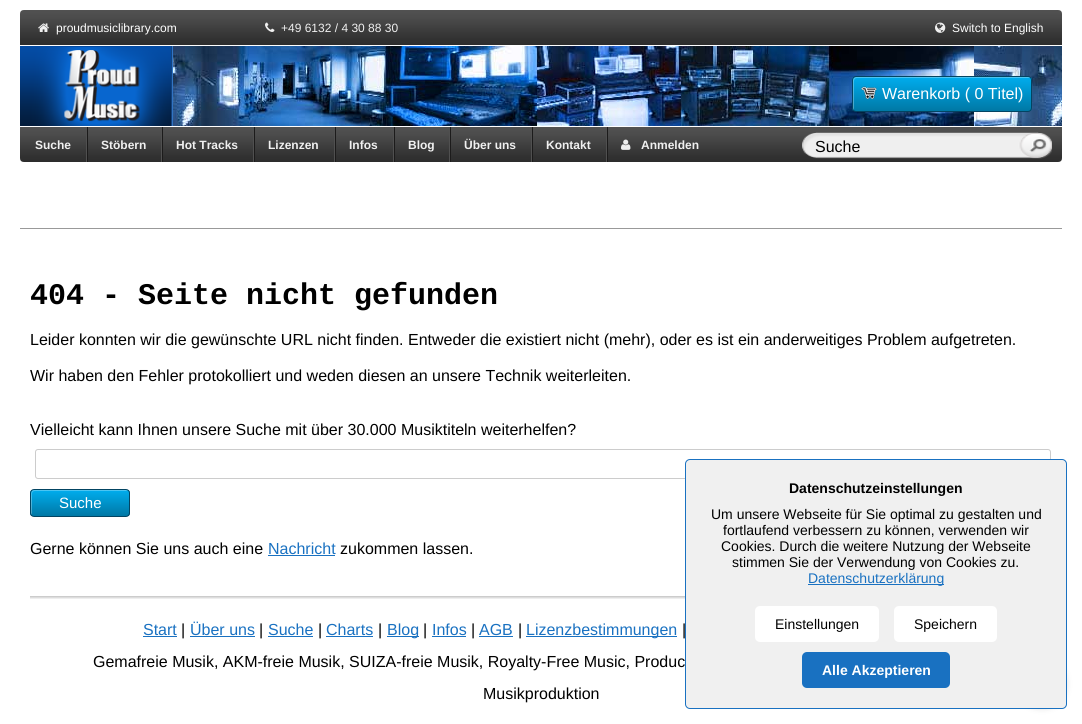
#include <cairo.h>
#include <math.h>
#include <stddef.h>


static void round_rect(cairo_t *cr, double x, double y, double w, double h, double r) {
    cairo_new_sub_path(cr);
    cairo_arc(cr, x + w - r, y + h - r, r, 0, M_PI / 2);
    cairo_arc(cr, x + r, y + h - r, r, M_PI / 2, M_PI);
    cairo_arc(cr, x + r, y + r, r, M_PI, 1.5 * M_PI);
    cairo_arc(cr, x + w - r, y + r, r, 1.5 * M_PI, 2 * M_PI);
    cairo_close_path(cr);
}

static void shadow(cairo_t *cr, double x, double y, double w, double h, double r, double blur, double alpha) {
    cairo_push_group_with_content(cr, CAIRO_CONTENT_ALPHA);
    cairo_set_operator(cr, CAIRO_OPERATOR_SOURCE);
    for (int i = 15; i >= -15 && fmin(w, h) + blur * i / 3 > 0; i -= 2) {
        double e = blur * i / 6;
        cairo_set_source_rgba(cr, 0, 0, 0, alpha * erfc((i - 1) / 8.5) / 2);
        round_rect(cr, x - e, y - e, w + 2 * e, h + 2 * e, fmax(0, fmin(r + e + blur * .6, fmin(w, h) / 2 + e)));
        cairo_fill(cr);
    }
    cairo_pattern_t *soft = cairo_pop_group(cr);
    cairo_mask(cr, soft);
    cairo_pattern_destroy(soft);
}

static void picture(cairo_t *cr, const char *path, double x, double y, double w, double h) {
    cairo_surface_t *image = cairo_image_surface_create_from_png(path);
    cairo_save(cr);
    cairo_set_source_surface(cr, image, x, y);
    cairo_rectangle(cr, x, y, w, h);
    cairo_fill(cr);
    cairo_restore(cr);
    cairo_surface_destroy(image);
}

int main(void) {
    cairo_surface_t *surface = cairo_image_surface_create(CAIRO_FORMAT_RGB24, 1082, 724);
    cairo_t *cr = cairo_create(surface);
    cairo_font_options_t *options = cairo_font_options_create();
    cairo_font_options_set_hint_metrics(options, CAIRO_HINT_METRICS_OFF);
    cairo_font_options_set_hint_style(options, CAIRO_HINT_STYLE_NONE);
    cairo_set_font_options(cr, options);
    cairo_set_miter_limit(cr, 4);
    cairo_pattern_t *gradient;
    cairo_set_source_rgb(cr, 1, 1, 1);
    cairo_paint(cr);
    picture(cr, "img1.png", 20, 10, 1042, 35);
    picture(cr, "img2.png", 38, 23, 11, 9);
    cairo_select_font_face(cr, "Liberation Sans", CAIRO_FONT_SLANT_NORMAL, CAIRO_FONT_WEIGHT_NORMAL);
    cairo_set_font_size(cr, 12);
    cairo_set_source_rgb(cr, 1, 1, 1);
    cairo_move_to(cr, 56, 32);
    cairo_show_text(cr, "proudmusiclibrary.com");
    picture(cr, "img3.png", 265, 22, 10, 10);
    cairo_set_source_rgb(cr, 0.941, 0.941, 0.941);
    cairo_move_to(cr, 281, 32);
    cairo_show_text(cr, "+49 6132 / 4 30 88 30");
    picture(cr, "img4.png", 935, 22, 11, 11);
    cairo_set_source_rgb(cr, 1, 1, 1);
    cairo_move_to(cr, 952, 32);
    cairo_show_text(cr, "Switch to English");
    picture(cr, "img5.png", 173, 46, 889, 80);
    picture(cr, "img6.png", 20, 46, 153, 80);
    cairo_save(cr);
    round_rect(cr, 852, 76, 180, 36, 4);
    cairo_clip(cr);
    gradient = cairo_pattern_create_linear(853, 77, 853, 111);
    cairo_pattern_add_color_stop_rgba(gradient, 0, 0, 0.678, 0.933, 1);
    cairo_pattern_add_color_stop_rgba(gradient, 1, 0, 0.471, 0.647, 1);
    cairo_set_source(cr, gradient);
    cairo_pattern_destroy(gradient);
    cairo_rectangle(cr, 852, 77, 180, 34);
    cairo_fill(cr);
    cairo_restore(cr);
    cairo_set_source_rgba(cr, 1, 1, 1, 0.3);
    cairo_new_path(cr);
    cairo_move_to(cr, 857, 78);
    cairo_line_to(cr, 1030, 78);
    cairo_curve_to(cr, 1030, 77, 1029, 77, 1028, 77);
    cairo_line_to(cr, 856, 77);
    cairo_curve_to(cr, 854, 77, 853, 78, 853, 80);
    cairo_line_to(cr, 853, 108);
    cairo_curve_to(cr, 853, 109, 853, 110, 854, 110);
    cairo_line_to(cr, 854, 86);
    cairo_curve_to(cr, 854, 83, 853, 78, 857, 78);
    cairo_close_path(cr);
    cairo_fill(cr);
    round_rect(cr, 852.5, 76.5, 179, 35, 3.5);
    cairo_set_source_rgb(cr, 0.012, 0.267, 0.384);
    cairo_set_line_width(cr, 1);
    cairo_stroke(cr);
    picture(cr, "img7.png", 861, 86, 16, 14);
    cairo_set_font_size(cr, 16);
    cairo_set_source_rgb(cr, 1, 1, 1);
    cairo_move_to(cr, 882, 99);
    cairo_show_text(cr, "Warenkorb ( 0 Titel)");
    picture(cr, "img8.png", 20, 127, 1042, 35);
    cairo_select_font_face(cr, "Liberation Sans", CAIRO_FONT_SLANT_NORMAL, CAIRO_FONT_WEIGHT_BOLD);
    cairo_set_font_size(cr, 12);
    cairo_set_source_rgb(cr, 0.941, 0.941, 0.941);
    cairo_move_to(cr, 35, 149);
    cairo_show_text(cr, "Suche");
    picture(cr, "img9.png", 86, 127, 2, 35);
    cairo_move_to(cr, 101, 149);
    cairo_show_text(cr, "Stöbern");
    picture(cr, "img9.png", 161, 127, 2, 35);
    cairo_move_to(cr, 176, 149);
    cairo_show_text(cr, "Hot Tracks");
    picture(cr, "img9.png", 253, 127, 2, 35);
    cairo_move_to(cr, 268, 149);
    cairo_show_text(cr, "Lizenzen");
    picture(cr, "img9.png", 334, 127, 2, 35);
    cairo_move_to(cr, 349, 149);
    cairo_show_text(cr, "Infos");
    picture(cr, "img9.png", 393, 127, 2, 35);
    cairo_move_to(cr, 408, 149);
    cairo_show_text(cr, "Blog");
    picture(cr, "img9.png", 449, 127, 2, 35);
    cairo_move_to(cr, 464, 149);
    cairo_show_text(cr, "Über uns");
    picture(cr, "img9.png", 531, 127, 2, 35);
    cairo_move_to(cr, 546, 149);
    cairo_show_text(cr, "Kontakt");
    picture(cr, "img9.png", 606, 127, 2, 35);
    picture(cr, "img10.png", 621, 139, 10, 11);
    cairo_move_to(cr, 641, 149);
    cairo_show_text(cr, "Anmelden");
    picture(cr, "img11.png", 802, 132, 250, 27);
    cairo_select_font_face(cr, "Liberation Sans", CAIRO_FONT_SLANT_NORMAL, CAIRO_FONT_WEIGHT_NORMAL);
    cairo_set_font_size(cr, 16);
    cairo_set_source_rgb(cr, 0, 0, 0);
    cairo_move_to(cr, 815, 152);
    cairo_show_text(cr, "Suche");
    cairo_set_source_rgb(cr, 0.6, 0.6, 0.6);
    cairo_rectangle(cr, 20, 228, 1042, 1);
    cairo_fill(cr);
    cairo_select_font_face(cr, "Liberation Mono", CAIRO_FONT_SLANT_NORMAL, CAIRO_FONT_WEIGHT_BOLD);
    cairo_set_font_size(cr, 30);
    cairo_set_source_rgb(cr, 0, 0, 0);
    cairo_move_to(cr, 30, 304);
    cairo_show_text(cr, "404 - Seite nicht gefunden");
    cairo_select_font_face(cr, "Liberation Sans", CAIRO_FONT_SLANT_NORMAL, CAIRO_FONT_WEIGHT_NORMAL);
    cairo_set_font_size(cr, 16);
    cairo_move_to(cr, 30, 345);
    cairo_show_text(cr, "Leider konnten wir die gewünschte URL nicht finden. Entweder die existiert nicht (mehr), oder es ist ein anderweitiges Problem aufgetreten.");
    cairo_move_to(cr, 30, 381);
    cairo_show_text(cr, "Wir haben den Fehler protokolliert und weden diesen an unsere Technik weiterleiten.");
    cairo_move_to(cr, 30, 435);
    cairo_show_text(cr, "Vielleicht kann Ihnen unsere Suche mit über 30.000 Musiktiteln weiterhelfen?");
    round_rect(cr, 35.5, 449.5, 1015, 29, 2.5);
    cairo_set_source_rgb(cr, 0.8, 0.8, 0.8);
    cairo_stroke(cr);
    cairo_save(cr);
    round_rect(cr, 30, 489, 100, 28, 4);
    cairo_clip(cr);
    gradient = cairo_pattern_create_linear(31, 490, 31, 516);
    cairo_pattern_add_color_stop_rgba(gradient, 0, 0, 0.678, 0.933, 1);
    cairo_pattern_add_color_stop_rgba(gradient, 1, 0, 0.471, 0.647, 1);
    cairo_set_source(cr, gradient);
    cairo_pattern_destroy(gradient);
    cairo_rectangle(cr, 30, 490, 100, 26);
    cairo_fill(cr);
    cairo_restore(cr);
    cairo_set_source_rgba(cr, 1, 1, 1, 0.3);
    cairo_new_path(cr);
    cairo_move_to(cr, 35, 491);
    cairo_line_to(cr, 128, 491);
    cairo_line_to(cr, 126, 490);
    cairo_line_to(cr, 49, 490);
    cairo_curve_to(cr, 30, 490, 31, 486, 31, 503);
    cairo_curve_to(cr, 31, 506, 30, 514, 32, 515);
    cairo_line_to(cr, 32, 497);
    cairo_curve_to(cr, 32, 495, 31, 491, 35, 491);
    cairo_close_path(cr);
    cairo_fill(cr);
    round_rect(cr, 30.5, 489.5, 99, 27, 3.5);
    cairo_set_source_rgb(cr, 0.012, 0.267, 0.384);
    cairo_stroke(cr);
    cairo_set_font_size(cr, 15);
    cairo_set_source_rgb(cr, 1, 1, 1);
    cairo_move_to(cr, 59, 508);
    cairo_show_text(cr, "Suche");
    cairo_set_font_size(cr, 16);
    cairo_set_source_rgb(cr, 0, 0, 0);
    cairo_move_to(cr, 30, 554);
    cairo_show_text(cr, "Gerne können Sie uns auch eine");
    cairo_set_source_rgb(cr, 0.098, 0.443, 0.757);
    cairo_move_to(cr, 268, 554);
    cairo_show_text(cr, "Nachricht");
    cairo_rectangle(cr, 268, 555, 67, 1);
    cairo_fill(cr);
    cairo_set_source_rgb(cr, 0, 0, 0);
    cairo_move_to(cr, 340, 554);
    cairo_show_text(cr, "zukommen lassen.");
    cairo_set_source_rgb(cr, 0.867, 0.867, 0.867);
    cairo_rectangle(cr, 30, 597, 655, 1);
    cairo_fill(cr);
    cairo_set_source_rgb(cr, 0.8, 0.8, 0.8);
    cairo_rectangle(cr, 30, 596, 655, 1);
    cairo_fill(cr);
    cairo_set_source_rgb(cr, 0.933, 0.933, 0.933);
    cairo_rectangle(cr, 30, 598, 655, 1);
    cairo_fill(cr);
    cairo_set_source_rgb(cr, 0.098, 0.443, 0.757);
    cairo_move_to(cr, 143, 635);
    cairo_show_text(cr, "Start");
    cairo_rectangle(cr, 143, 636, 34, 1);
    cairo_fill(cr);
    cairo_set_source_rgb(cr, 0, 0, 0);
    cairo_move_to(cr, 181, 635);
    cairo_show_text(cr, "|");
    cairo_set_source_rgb(cr, 0.098, 0.443, 0.757);
    cairo_rectangle(cr, 190, 636, 65, 1);
    cairo_fill(cr);
    cairo_move_to(cr, 190, 635);
    cairo_show_text(cr, "Über uns");
    cairo_set_source_rgb(cr, 0, 0, 0);
    cairo_move_to(cr, 259, 635);
    cairo_show_text(cr, "|");
    cairo_set_source_rgb(cr, 0.098, 0.443, 0.757);
    cairo_move_to(cr, 268, 635);
    cairo_show_text(cr, "Suche");
    cairo_rectangle(cr, 268, 636, 45, 1);
    cairo_fill(cr);
    cairo_set_source_rgb(cr, 0, 0, 0);
    cairo_move_to(cr, 318, 635);
    cairo_show_text(cr, "|");
    cairo_set_source_rgb(cr, 0.098, 0.443, 0.757);
    cairo_move_to(cr, 326, 635);
    cairo_show_text(cr, "Charts");
    cairo_rectangle(cr, 326, 636, 47, 1);
    cairo_fill(cr);
    cairo_set_source_rgb(cr, 0, 0, 0);
    cairo_move_to(cr, 378, 635);
    cairo_show_text(cr, "|");
    cairo_set_source_rgb(cr, 0.098, 0.443, 0.757);
    cairo_rectangle(cr, 387, 636, 32, 1);
    cairo_fill(cr);
    cairo_move_to(cr, 387, 635);
    cairo_show_text(cr, "Blog");
    cairo_set_source_rgb(cr, 0, 0, 0);
    cairo_move_to(cr, 423, 635);
    cairo_show_text(cr, "|");
    cairo_set_source_rgb(cr, 0.098, 0.443, 0.757);
    cairo_move_to(cr, 432, 635);
    cairo_show_text(cr, "Infos");
    cairo_rectangle(cr, 432, 636, 34, 1);
    cairo_fill(cr);
    cairo_set_source_rgb(cr, 0, 0, 0);
    cairo_move_to(cr, 471, 635);
    cairo_show_text(cr, "|");
    cairo_set_source_rgb(cr, 0.098, 0.443, 0.757);
    cairo_move_to(cr, 479, 635);
    cairo_show_text(cr, "AGB");
    cairo_rectangle(cr, 479, 636, 34, 1);
    cairo_fill(cr);
    cairo_set_source_rgb(cr, 0, 0, 0);
    cairo_move_to(cr, 518, 635);
    cairo_show_text(cr, "|");
    cairo_set_source_rgb(cr, 0.098, 0.443, 0.757);
    cairo_rectangle(cr, 526, 636, 151, 1);
    cairo_fill(cr);
    cairo_move_to(cr, 526, 635);
    cairo_show_text(cr, "Lizenzbestimmungen");
    cairo_set_source_rgb(cr, 0, 0, 0);
    cairo_move_to(cr, 682, 635);
    cairo_show_text(cr, "|");
    cairo_move_to(cr, 93, 667);
    cairo_show_text(cr, "Gemafreie Musik, AKM-freie Musik, SUIZA-freie Musik, Royalty-Free Music, Produc");
    cairo_move_to(cr, 483, 699);
    cairo_show_text(cr, "Musikproduktion");
    cairo_set_source_rgb(cr, 0, 0, 0);
    shadow(cr, 1022, 664, 40, 40, 20, 5, 0.3);
    cairo_set_source_rgb(cr, 0.941, 0.941, 0.941);
    round_rect(cr, 685.5, 459.5, 381, 249, 4.5);
    cairo_fill_preserve(cr);
    cairo_set_source_rgb(cr, 0.098, 0.443, 0.757);
    cairo_stroke(cr);
    cairo_select_font_face(cr, "Liberation Sans", CAIRO_FONT_SLANT_NORMAL, CAIRO_FONT_WEIGHT_BOLD);
    cairo_set_font_size(cr, 14);
    cairo_set_source_rgb(cr, 0, 0, 0);
    cairo_move_to(cr, 789, 493);
    cairo_show_text(cr, "Datenschutzeinstellungen");
    cairo_select_font_face(cr, "Liberation Sans", CAIRO_FONT_SLANT_NORMAL, CAIRO_FONT_WEIGHT_NORMAL);
    cairo_move_to(cr, 711, 519);
    cairo_show_text(cr, "Um unsere Webseite für Sie optimal zu gestalten und");
    cairo_move_to(cr, 723, 535);
    cairo_show_text(cr, "fortlaufend verbessern zu können, verwenden wir");
    cairo_move_to(cr, 721, 551);
    cairo_show_text(cr, "Cookies. Durch die weitere Nutzung der Webseite");
    cairo_move_to(cr, 732, 567);
    cairo_show_text(cr, "stimmen Sie der Verwendung von Cookies zu.");
    cairo_set_source_rgb(cr, 0.098, 0.443, 0.757);
    cairo_rectangle(cr, 808, 584, 136, 1);
    cairo_fill(cr);
    cairo_move_to(cr, 808, 583);
    cairo_show_text(cr, "Datenschutzerklärung");
    cairo_set_source_rgb(cr, 1, 1, 1);
    round_rect(cr, 755, 606, 124, 36, 5);
    cairo_fill(cr);
    cairo_set_source_rgb(cr, 0, 0, 0);
    cairo_move_to(cr, 775, 629);
    cairo_show_text(cr, "Einstellungen");
    cairo_set_source_rgb(cr, 1, 1, 1);
    round_rect(cr, 894, 606, 103, 36, 5);
    cairo_fill(cr);
    cairo_set_source_rgb(cr, 0, 0, 0);
    cairo_move_to(cr, 914, 629);
    cairo_show_text(cr, "Speichern");
    cairo_set_source_rgb(cr, 0.098, 0.443, 0.757);
    round_rect(cr, 802, 652, 148, 36, 5);
    cairo_fill(cr);
    cairo_select_font_face(cr, "Liberation Sans", CAIRO_FONT_SLANT_NORMAL, CAIRO_FONT_WEIGHT_BOLD);
    cairo_set_source_rgb(cr, 1, 1, 1);
    cairo_move_to(cr, 822, 675);
    cairo_show_text(cr, "Alle Akzeptieren");
    cairo_surface_write_to_png(surface, "page.png");
    cairo_font_options_destroy(options);
    cairo_destroy(cr);
    cairo_surface_destroy(surface);
    return 0;
}
